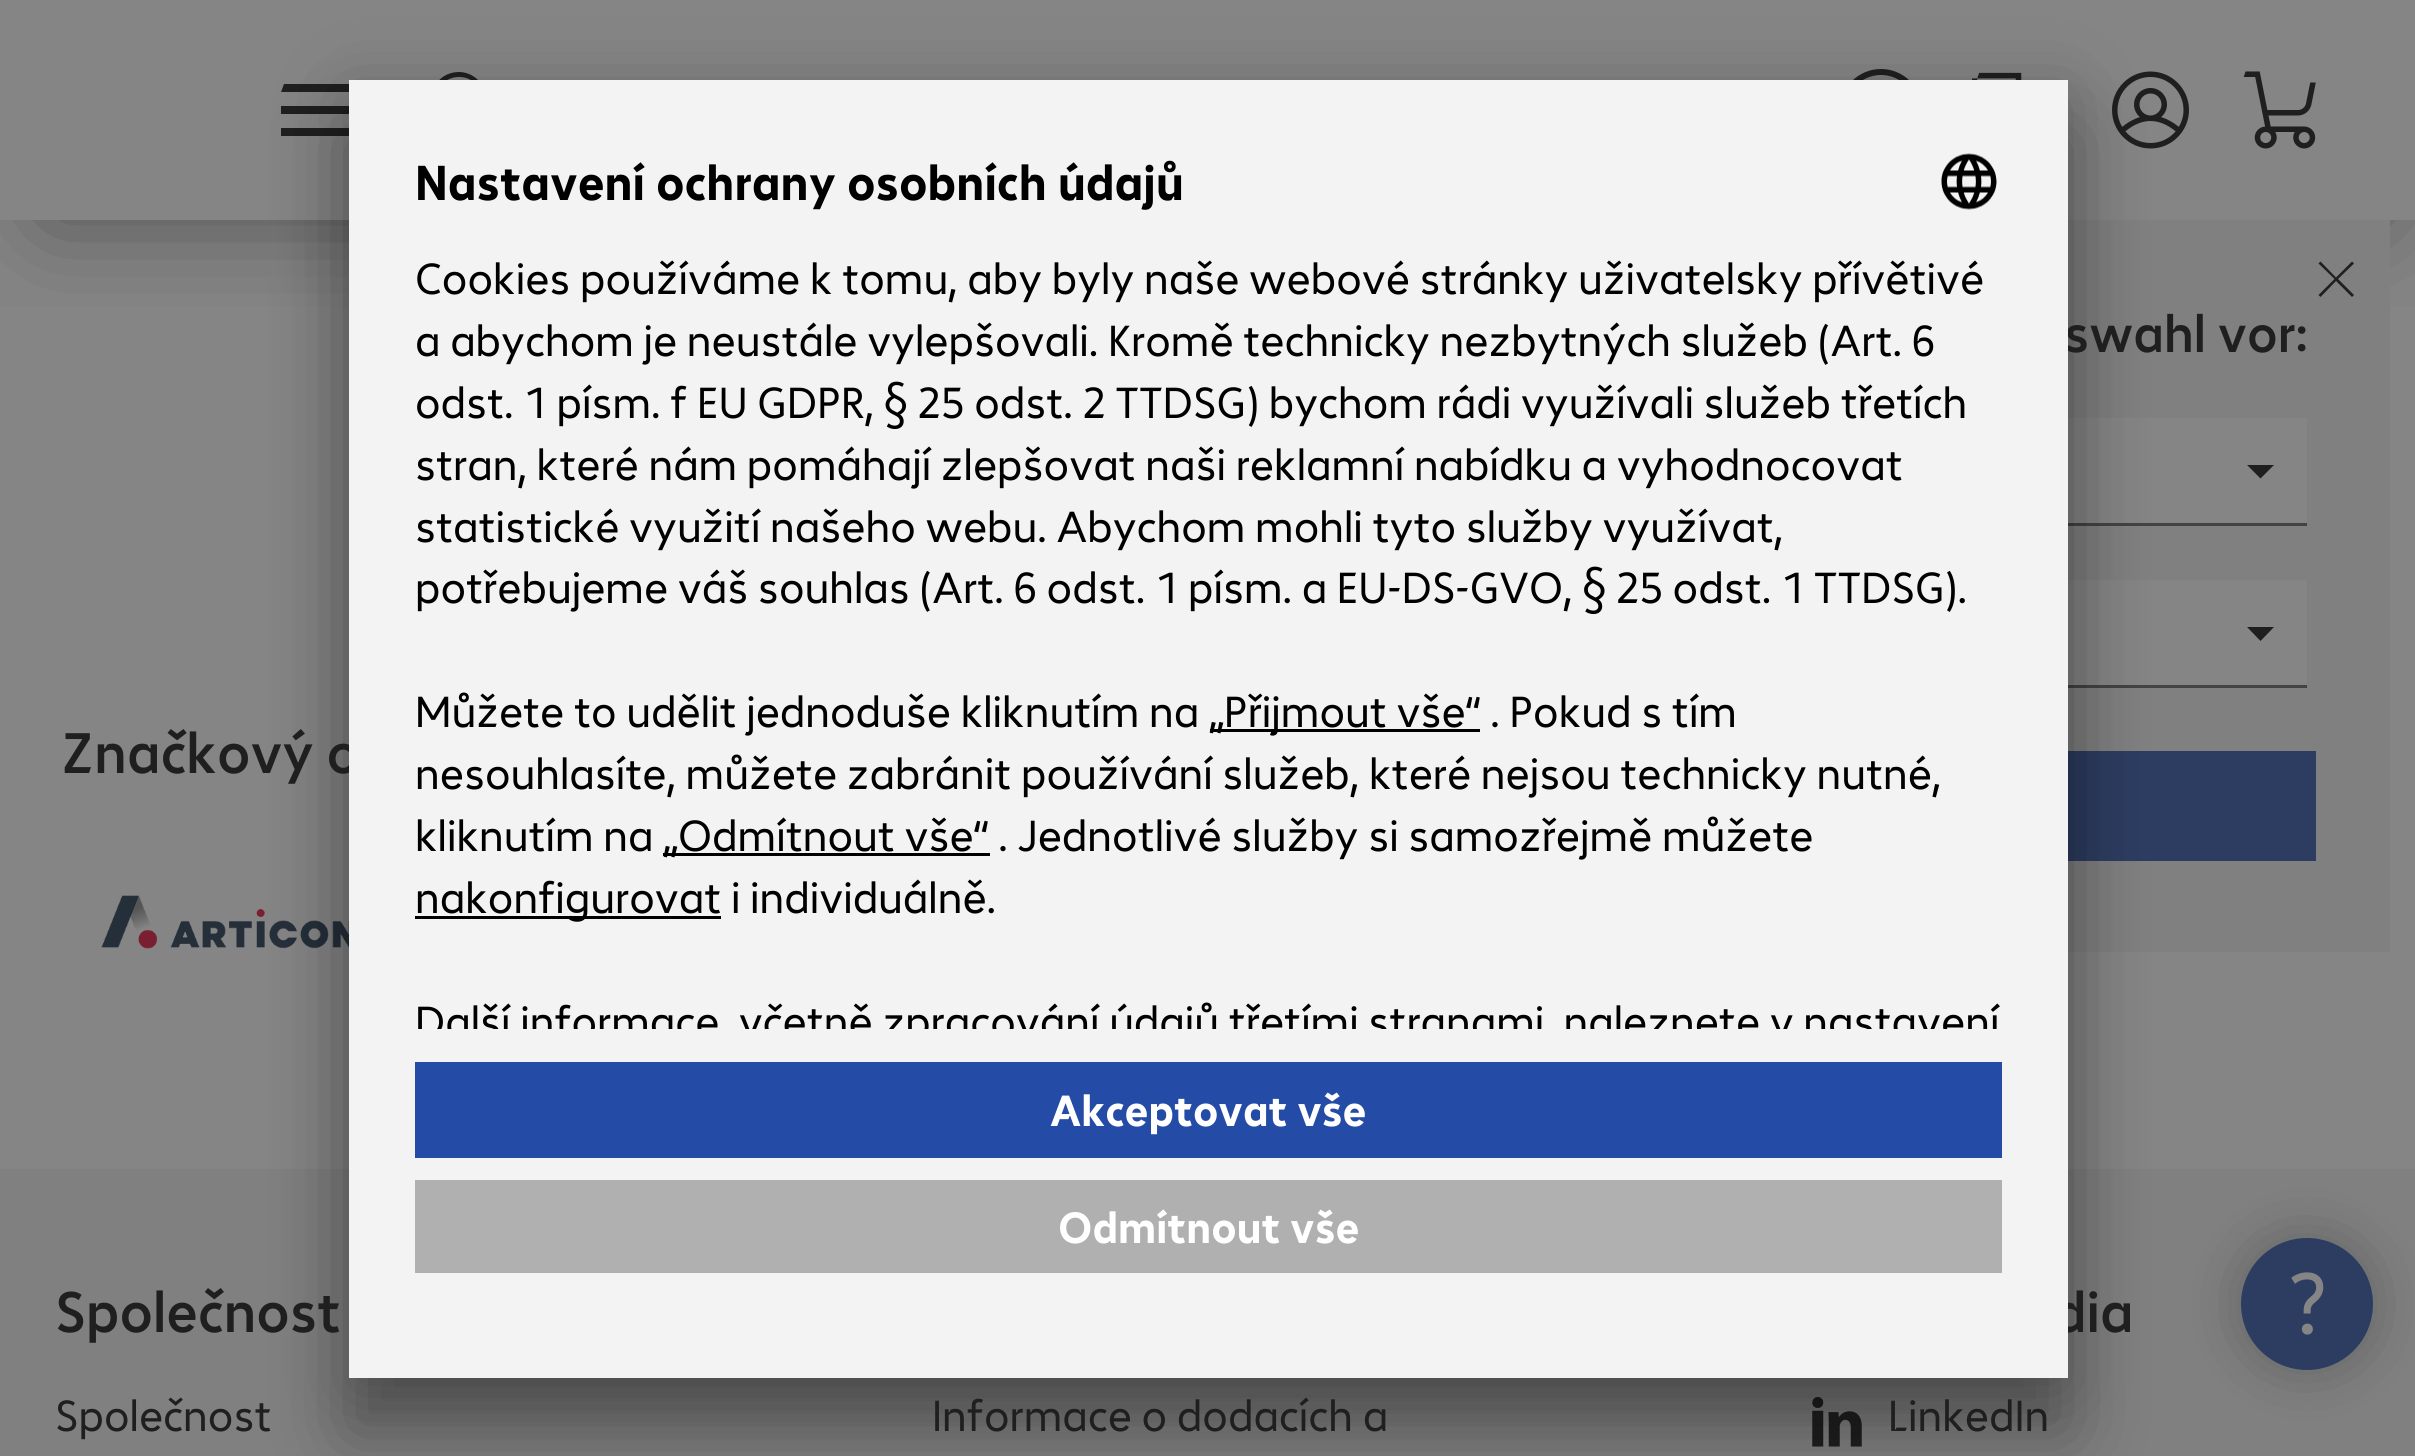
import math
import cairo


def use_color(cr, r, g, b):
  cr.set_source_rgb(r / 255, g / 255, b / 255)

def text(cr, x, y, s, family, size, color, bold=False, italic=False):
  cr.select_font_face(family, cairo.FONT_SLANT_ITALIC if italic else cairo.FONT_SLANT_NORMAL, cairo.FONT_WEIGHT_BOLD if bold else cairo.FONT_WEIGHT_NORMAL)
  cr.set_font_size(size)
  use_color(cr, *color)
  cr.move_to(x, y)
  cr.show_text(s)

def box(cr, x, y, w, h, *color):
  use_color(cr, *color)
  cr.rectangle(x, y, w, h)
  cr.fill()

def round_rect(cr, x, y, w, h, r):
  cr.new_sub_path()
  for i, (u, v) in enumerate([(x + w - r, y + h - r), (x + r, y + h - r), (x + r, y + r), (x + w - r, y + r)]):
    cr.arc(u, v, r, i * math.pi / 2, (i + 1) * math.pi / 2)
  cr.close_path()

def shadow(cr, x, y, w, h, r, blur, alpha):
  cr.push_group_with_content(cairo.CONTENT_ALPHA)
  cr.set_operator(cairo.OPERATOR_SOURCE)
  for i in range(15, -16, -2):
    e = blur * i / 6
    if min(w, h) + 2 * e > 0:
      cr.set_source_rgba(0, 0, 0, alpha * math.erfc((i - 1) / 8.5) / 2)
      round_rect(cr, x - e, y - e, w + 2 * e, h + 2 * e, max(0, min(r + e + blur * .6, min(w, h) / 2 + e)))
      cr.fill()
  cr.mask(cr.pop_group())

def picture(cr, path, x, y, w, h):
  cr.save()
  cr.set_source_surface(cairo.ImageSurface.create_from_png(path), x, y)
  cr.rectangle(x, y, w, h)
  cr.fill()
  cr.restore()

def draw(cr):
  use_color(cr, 133, 133, 133)
  cr.paint()
  cr.save()
  cr.rectangle(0, 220, 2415, 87)
  cr.clip()
  use_color(cr, 31, 31, 31)
  shadow(cr, 47, 80, 2335, 137, 0, 51, 0.52)
  cr.restore()
  box(cr, 281, 128, 68, 8, 31, 31, 31)
  box(cr, 281, 106, 68, 8, 31, 31, 31)
  cr.new_path()
  cr.move_to(284, 84)
  cr.line_to(362, 84)
  cr.line_to(362, 92)
  cr.line_to(281, 92)
  cr.close_path()
  cr.fill()
  cr.new_path()
  cr.move_to(459, 72)
  cr.curve_to(435, 72, 423, 99, 438, 117)
  cr.line_to(410, 144)
  cr.line_to(414, 148)
  cr.line_to(442, 121)
  cr.curve_to(468, 142, 503, 105, 478, 80)
  cr.curve_to(473, 75, 466, 72, 459, 72)
  cr.close_path()
  cr.move_to(459, 121)
  cr.curve_to(430, 121, 430, 77, 459, 77)
  cr.curve_to(488, 77, 488, 121, 459, 121)
  cr.close_path()
  cr.fill()
  picture(cr, "img_02.png", 1852, 69, 58, 11)
  cr.arc(1881, 110, 38, 0, 2 * math.pi)
  cr.set_line_width(6)
  cr.stroke()
  picture(cr, "img_03.png", 1972, 72, 50, 8)
  picture(cr, "img_04.png", 2112, 71, 77, 78)
  box(cr, 2068, 220, 322, 732, 128, 128, 128)
  box(cr, 2068, 418, 239, 105, 133, 133, 133)
  box(cr, 2068, 523, 239, 3, 67, 67, 67)
  box(cr, 2068, 580, 239, 105, 133, 133, 133)
  box(cr, 2068, 685, 239, 3, 67, 67, 67)
  box(cr, 2068, 751, 248, 110, 45, 61, 97)
  picture(cr, "img_06.png", 101, 895, 248, 54)
  box(cr, 0, 1169, 2415, 287, 128, 128, 128)
  picture(cr, "img_07.png", 1812, 1397, 50, 50)
  use_color(cr, 0, 0, 0)
  shadow(cr, 349, 135, 1719, 1298, 0, 38.5, 0.3)
  shadow(cr, 349, 94, 1719, 1298, 0, 36, 0.22)
  picture(cr, "img_05.png", 2243, 71, 73, 78)
  use_color(cr, 31, 31, 31)
  cr.new_path()
  cr.move_to(2354, 263.5)
  cr.line_to(2352, 261.5)
  cr.line_to(2336, 277.5)
  cr.line_to(2320.5, 261.5)
  cr.line_to(2318.5, 263.5)
  cr.line_to(2334.5, 279)
  cr.line_to(2318.5, 295)
  cr.line_to(2320.5, 297)
  cr.line_to(2336, 281)
  cr.line_to(2352, 297)
  cr.line_to(2354, 295)
  cr.line_to(2338, 279)
  cr.close_path()
  cr.fill()
  cr.new_path()
  cr.move_to(2247, 465)
  cr.line_to(2274, 465)
  cr.line_to(2260.5, 478.5)
  cr.close_path()
  cr.fill()
  cr.new_path()
  cr.move_to(2247, 627)
  cr.line_to(2274, 627)
  cr.line_to(2260.5, 641)
  cr.close_path()
  cr.fill()
  use_color(cr, 31, 37, 35)
  shadow(cr, 2241, 1238, 132, 132, 66, 27.5, 0.16)
  shadow(cr, 2241, 1238, 132, 132, 66, 27.5, 0.16)
  use_color(cr, 45, 61, 97)
  cr.arc(2307, 1304, 66, 0, 2 * math.pi)
  cr.fill()
  picture(cr, "img_08.png", 2291, 1272, 33, 63)
  text(cr, 2064, 352, "swahl vor:", "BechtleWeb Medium", 53, (31, 31, 31))
  text(cr, 61, 773, "Značkový o", "BechtleWeb Medium", 57.75, (31, 31, 31))
  text(cr, 55, 1332, "Společnost", "BechtleWeb Medium", 57.75, (31, 31, 31))
  text(cr, 55, 1431, "Společnost", "BechtleWeb", 44, (31, 31, 31))
  text(cr, 932, 1431, "Informace o dodacích a", "BechtleWeb", 44, (31, 31, 31))
  text(cr, 2053, 1332, "dia", "BechtleWeb Medium", 57.75, (31, 31, 31))
  box(cr, 349, 80, 1719, 1298, 243, 243, 243)
  picture(cr, "img_01.png", 1941, 153, 56, 57)
  text(cr, 415, 200, "Nastavení ochrany osobních údajů", "BechtleWeb", 49.5, (0, 0, 0), bold=True)
  cr.save()
  cr.rectangle(415, 237, 1587, 792)
  cr.clip()
  text(cr, 415, 1037, "Další informace, včetně zpracování údajů třetími stranami, naleznete v nastavení", "BechtleWeb", 44, (0, 0, 0))
  cr.restore()
  box(cr, 415, 916, 306, 3, 0, 0, 0)
  text(cr, 415, 913, "nakonfigurovat i individuálně.", "BechtleWeb", 44, (0, 0, 0))
  box(cr, 663, 853, 327, 3, 0, 0, 0)
  text(cr, 663, 851, "„Odmítnout vše“ . Jednotlivé služby si samozřejmě můžete", "BechtleWeb", 44, (0, 0, 0))
  text(cr, 415, 851, "kliknutím na", "BechtleWeb", 44, (0, 0, 0))
  text(cr, 415, 789, "nesouhlasíte, můžete zabránit používání služeb, které nejsou technicky nutné,", "BechtleWeb", 44, (0, 0, 0))
  box(cr, 1210, 729, 270, 3, 0, 0, 0)
  text(cr, 1209, 727, "„Přijmout vše“ . Pokud s tím", "BechtleWeb", 44, (0, 0, 0))
  text(cr, 415, 727, "Můžete to udělit jednoduše kliknutím na", "BechtleWeb", 44, (0, 0, 0))
  text(cr, 415, 603, "potřebujeme váš souhlas (Art. 6 odst. 1 písm. a EU-DS-GVO, § 25 odst. 1 TTDSG).", "BechtleWeb", 44, (0, 0, 0))
  text(cr, 415, 542, "statistické využití našeho webu. Abychom mohli tyto služby využívat,", "BechtleWeb", 44, (0, 0, 0))
  text(cr, 415, 480, "stran, které nám pomáhají zlepšovat naši reklamní nabídku a vyhodnocovat", "BechtleWeb", 44, (0, 0, 0))
  text(cr, 415, 418, "odst. 1 písm. f EU GDPR, § 25 odst. 2 TTDSG) bychom rádi využívali služeb třetích", "BechtleWeb", 44, (0, 0, 0))
  text(cr, 415, 356, "a abychom je neustále vylepšovali. Kromě technicky nezbytných služeb (Art. 6", "BechtleWeb", 44, (0, 0, 0))
  text(cr, 415, 294, "Cookies používáme k tomu, aby byly naše webové stránky uživatelsky přívětivé", "BechtleWeb", 44, (0, 0, 0))
  box(cr, 415, 1180, 1587, 93, 176, 176, 176)
  text(cr, 1058, 1243, "Odmítnout vše", "BechtleWeb", 44, (255, 255, 255), bold=True)
  box(cr, 415, 1062, 1587, 96, 36, 76, 167)
  text(cr, 1050, 1126, "Akceptovat vše", "BechtleWeb", 44, (255, 255, 255), bold=True)
  text(cr, 1888, 1431, "LinkedIn", "BechtleWeb", 44, (31, 31, 31))


surface = cairo.ImageSurface(cairo.FORMAT_RGB24, 2415, 1456)
cr = cairo.Context(surface)
options = cairo.FontOptions()
options.set_hint_metrics(cairo.HINT_METRICS_OFF)
options.set_hint_style(cairo.HINT_STYLE_NONE)
cr.set_font_options(options)
cr.set_miter_limit(4)
draw(cr)
surface.write_to_png("out.png")
